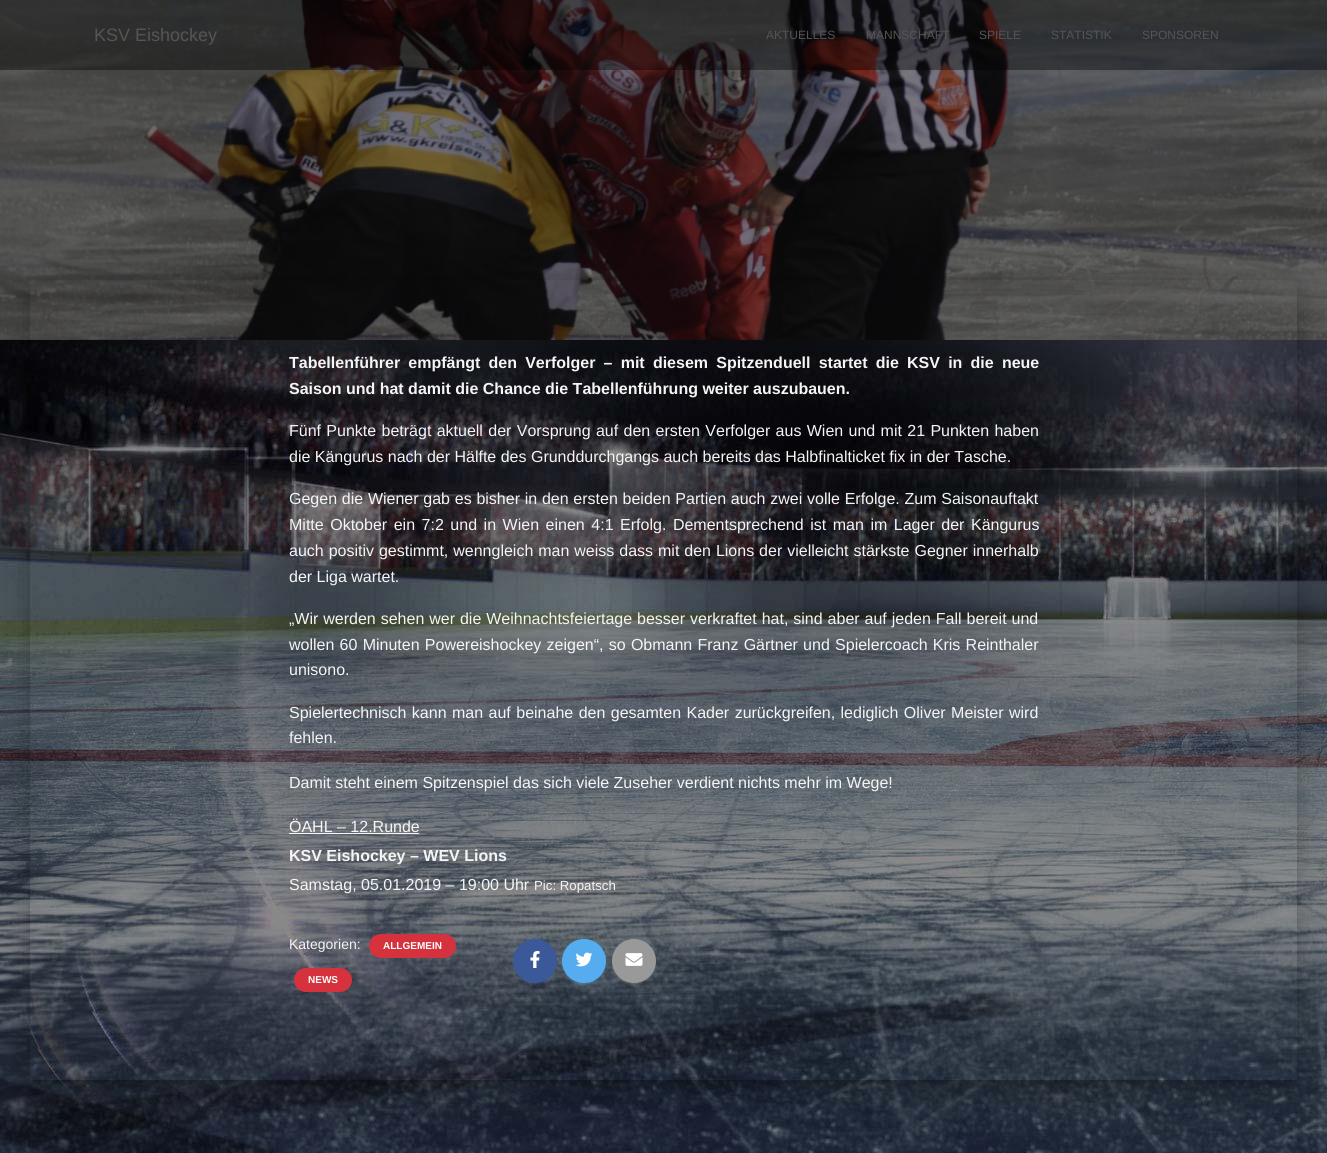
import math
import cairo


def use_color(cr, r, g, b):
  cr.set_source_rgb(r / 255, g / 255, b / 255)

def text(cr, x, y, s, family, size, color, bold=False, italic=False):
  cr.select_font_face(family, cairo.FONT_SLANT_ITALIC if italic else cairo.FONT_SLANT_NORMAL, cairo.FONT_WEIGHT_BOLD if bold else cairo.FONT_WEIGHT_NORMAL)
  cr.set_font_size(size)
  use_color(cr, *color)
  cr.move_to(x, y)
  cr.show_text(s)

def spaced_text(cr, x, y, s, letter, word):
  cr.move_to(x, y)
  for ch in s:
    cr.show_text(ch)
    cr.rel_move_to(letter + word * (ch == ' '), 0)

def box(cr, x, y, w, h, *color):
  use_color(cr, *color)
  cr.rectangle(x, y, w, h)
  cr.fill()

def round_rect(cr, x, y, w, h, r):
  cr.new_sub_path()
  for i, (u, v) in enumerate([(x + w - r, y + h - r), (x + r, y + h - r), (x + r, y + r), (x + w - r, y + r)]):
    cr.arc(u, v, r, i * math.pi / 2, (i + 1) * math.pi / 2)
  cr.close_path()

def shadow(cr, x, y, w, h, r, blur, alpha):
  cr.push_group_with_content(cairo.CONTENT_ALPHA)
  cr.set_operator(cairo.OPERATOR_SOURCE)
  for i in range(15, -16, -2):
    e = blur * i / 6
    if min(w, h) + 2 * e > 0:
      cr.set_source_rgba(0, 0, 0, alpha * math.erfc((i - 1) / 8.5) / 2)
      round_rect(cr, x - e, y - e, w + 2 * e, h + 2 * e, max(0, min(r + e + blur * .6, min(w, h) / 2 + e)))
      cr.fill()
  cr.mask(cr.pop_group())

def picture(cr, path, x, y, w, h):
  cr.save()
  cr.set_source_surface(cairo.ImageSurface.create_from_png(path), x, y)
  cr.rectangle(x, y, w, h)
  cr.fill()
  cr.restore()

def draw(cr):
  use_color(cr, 255, 255, 255)
  cr.paint()
  picture(cr, "img_01.png", 0, 339, 1327, 814)
  picture(cr, "img_02.png", 0, 0, 1327, 340)
  cr.set_source_rgba(0, 0, 0, 0.5)
  cr.rectangle(0, 0, 1327, 340)
  cr.fill()
  cr.set_source_rgba(0, 0, 0, 0.4)
  cr.rectangle(0, 0, 1327, 70)
  cr.fill()
  cr.save()
  cr.set_fill_rule(cairo.FILL_RULE_EVEN_ODD)
  cr.new_path()
  cr.move_to(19, 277)
  cr.line_to(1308, 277)
  cr.line_to(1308, 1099)
  cr.line_to(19, 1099)
  cr.close_path()
  cr.move_to(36, 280)
  cr.line_to(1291, 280)
  cr.curve_to(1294.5, 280, 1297, 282.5, 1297, 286)
  cr.line_to(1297, 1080)
  cr.line_to(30, 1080)
  cr.line_to(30, 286)
  cr.curve_to(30, 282.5, 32.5, 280, 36, 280)
  cr.close_path()
  cr.clip()
  use_color(cr, 0, 0, 0)
  shadow(cr, 35, 293, 1257, 790, 1, 5, 0.2)
  cr.restore()
  cr.save()
  cr.set_fill_rule(cairo.FILL_RULE_EVEN_ODD)
  cr.new_path()
  cr.move_to(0, 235)
  cr.line_to(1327, 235)
  cr.line_to(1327, 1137)
  cr.line_to(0, 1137)
  cr.close_path()
  cr.move_to(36, 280)
  cr.line_to(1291, 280)
  cr.curve_to(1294.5, 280, 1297, 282.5, 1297, 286)
  cr.line_to(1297, 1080)
  cr.line_to(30, 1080)
  cr.line_to(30, 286)
  cr.curve_to(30, 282.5, 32.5, 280, 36, 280)
  cr.close_path()
  cr.clip()
  use_color(cr, 0, 0, 0)
  shadow(cr, 25, 281, 1277, 810, 11, 15, 0.12)
  cr.restore()
  cr.save()
  cr.set_fill_rule(cairo.FILL_RULE_EVEN_ODD)
  cr.new_path()
  cr.move_to(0, 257)
  cr.line_to(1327, 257)
  cr.line_to(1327, 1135)
  cr.line_to(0, 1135)
  cr.close_path()
  cr.move_to(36, 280)
  cr.line_to(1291, 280)
  cr.curve_to(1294.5, 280, 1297, 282.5, 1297, 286)
  cr.line_to(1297, 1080)
  cr.line_to(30, 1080)
  cr.line_to(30, 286)
  cr.curve_to(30, 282.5, 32.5, 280, 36, 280)
  cr.close_path()
  cr.clip()
  use_color(cr, 0, 0, 0)
  shadow(cr, 28, 294, 1271, 804, 8, 12, 0.14)
  cr.restore()
  box(cr, 289, 833, 130, 1, 245, 245, 245)
  use_color(cr, 213, 50, 61)
  round_rect(cr, 369, 934, 87, 24, 12)
  cr.fill()
  round_rect(cr, 294, 968, 58, 24, 12)
  cr.fill()
  use_color(cr, 59, 89, 152)
  shadow(cr, 513, 940, 44, 44, 22, 2.5, 0.12)
  shadow(cr, 515, 944, 40, 40, 20, 0.5, 0.2)
  use_color(cr, 59, 89, 152)
  cr.arc(535, 961, 22, 0, 2 * math.pi)
  cr.fill()
  picture(cr, "img_03.png", 530, 951, 10, 17)
  use_color(cr, 85, 172, 238)
  shadow(cr, 562, 940, 44, 44, 22, 2.5, 0.12)
  shadow(cr, 564, 944, 40, 40, 20, 0.5, 0.2)
  shadow(cr, 562, 941, 44, 44, 22, 1, 0.14)
  use_color(cr, 85, 172, 238)
  cr.arc(584, 961, 22, 0, 2 * math.pi)
  cr.fill()
  picture(cr, "img_04.png", 575, 952, 18, 15)
  use_color(cr, 153, 153, 153)
  shadow(cr, 612, 940, 44, 44, 22, 2.5, 0.12)
  shadow(cr, 614, 944, 40, 40, 20, 0.5, 0.2)
  shadow(cr, 612, 941, 44, 44, 22, 1, 0.14)
  use_color(cr, 153, 153, 153)
  cr.arc(634, 961, 22, 0, 2 * math.pi)
  cr.fill()
  picture(cr, "img_05.png", 625, 953, 18, 13)
  text(cr, 94, 41, "KSV Eishockey", "Liberation Sans", 18, (85, 85, 85))
  text(cr, 766, 39, "AKTUELLES", "Liberation Sans", 12, (85, 85, 85))
  text(cr, 866, 39, "MANNSCHAFT", "Liberation Sans", 12, (85, 85, 85))
  text(cr, 979, 39, "SPIELE", "Liberation Sans", 12, (85, 85, 85))
  text(cr, 1051, 39, "STATISTIK", "Liberation Sans", 12, (85, 85, 85))
  text(cr, 1142, 39, "SPONSOREN", "Liberation Sans", 12, (85, 85, 85))
  cr.select_font_face("Liberation Sans", cairo.FONT_SLANT_NORMAL, cairo.FONT_WEIGHT_BOLD)
  cr.set_font_size(16)
  use_color(cr, 245, 245, 245)
  spaced_text(cr, 289, 368, "Tabellenführer empfängt den Verfolger – mit diesem Spitzenduell startet die KSV in die neue", 0, 3.75)
  text(cr, 289, 394, "Saison und hat damit die Chance die Tabellenführung weiter auszubauen.", "Liberation Sans", 16, (245, 245, 245), bold=True)
  cr.select_font_face("Liberation Sans")
  spaced_text(cr, 289, 436, "Fünf Punkte beträgt aktuell der Vorsprung auf den ersten Verfolger aus Wien und mit 21 Punkten haben", 0, 0.9)
  text(cr, 289, 462, "die Kängurus nach der Hälfte des Grunddurchgangs auch bereits das Halbfinalticket fix in der Tasche.", "Liberation Sans", 16, (245, 245, 245))
  spaced_text(cr, 289, 504, "Gegen die Wiener gab es bisher in den ersten beiden Partien auch zwei volle Erfolge. Zum Saisonauftakt", 0, 0.3)
  spaced_text(cr, 289, 530, "Mitte Oktober ein 7:2 und in Wien einen 4:1 Erfolg. Dementsprechend ist man im Lager der Kängurus", 0, 2.1)
  spaced_text(cr, 289, 556, "auch positiv gestimmt, wenngleich man weiss dass mit den Lions der vielleicht stärkste Gegner innerhalb", 0, 0.5)
  text(cr, 289, 582, "der Liga wartet.", "Liberation Sans", 16, (245, 245, 245))
  spaced_text(cr, 289, 624, "„Wir werden sehen wer die Weihnachtsfeiertage besser verkraftet hat, sind aber auf jeden Fall bereit und", 0, 0.5)
  spaced_text(cr, 289, 650, "wollen 60 Minuten Powereishockey zeigen“, so Obmann Franz Gärtner und Spielercoach Kris Reinthaler", 0, 0.8)
  text(cr, 289, 675, "unisono.", "Liberation Sans", 16, (245, 245, 245))
  spaced_text(cr, 289, 718, "Spielertechnisch kann man auf beinahe den gesamten Kader zurückgreifen, lediglich Oliver Meister wird", 0, 1)
  text(cr, 289, 743, "fehlen.", "Liberation Sans", 16, (245, 245, 245))
  text(cr, 289, 788, "Damit steht einem Spitzenspiel das sich viele Zuseher verdient nichts mehr im Wege!", "Liberation Sans", 16, (245, 245, 245))
  text(cr, 289, 832, "ÖAHL – 12.Runde", "Liberation Sans", 16, (245, 245, 245))
  text(cr, 289, 861, "KSV Eishockey – WEV Lions", "Liberation Sans", 16, (245, 245, 245), bold=True)
  text(cr, 289, 890, "Samstag, 05.01.2019 – 19:00 Uhr", "Liberation Sans", 16, (245, 245, 245))
  text(cr, 534, 890, "Pic: Ropatsch", "Liberation Sans", 13.25, (245, 245, 245))
  text(cr, 289, 949, "Kategorien:", "Liberation Sans", 14, (245, 245, 245))
  text(cr, 383, 949, "ALLGEMEIN", "Liberation Sans", 10, (255, 255, 255), bold=True)
  text(cr, 308, 983, "NEWS", "Liberation Sans", 10, (255, 255, 255), bold=True)


surface = cairo.ImageSurface(cairo.FORMAT_RGB24, 1327, 1153)
cr = cairo.Context(surface)
options = cairo.FontOptions()
options.set_hint_metrics(cairo.HINT_METRICS_OFF)
options.set_hint_style(cairo.HINT_STYLE_NONE)
cr.set_font_options(options)
cr.set_miter_limit(4)
draw(cr)
surface.write_to_png("out.png")
